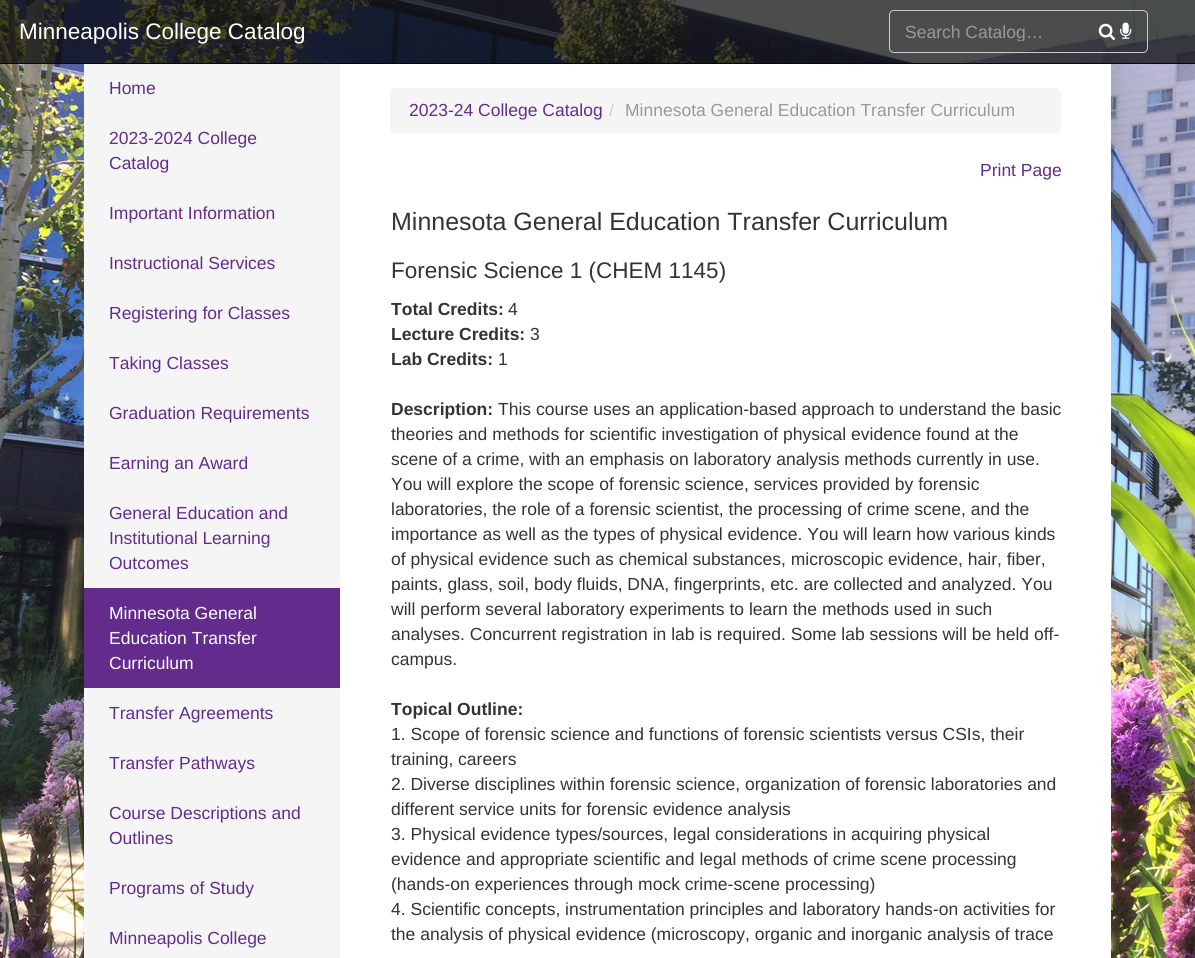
import math
import cairo


def use_color(cr, r, g, b):
  cr.set_source_rgb(r / 255, g / 255, b / 255)

def text(cr, x, y, s, family, size, color, bold=False, italic=False):
  cr.select_font_face(family, cairo.FONT_SLANT_ITALIC if italic else cairo.FONT_SLANT_NORMAL, cairo.FONT_WEIGHT_BOLD if bold else cairo.FONT_WEIGHT_NORMAL)
  cr.set_font_size(size)
  use_color(cr, *color)
  cr.move_to(x, y)
  cr.show_text(s)

def box(cr, x, y, w, h, *color):
  use_color(cr, *color)
  cr.rectangle(x, y, w, h)
  cr.fill()

def round_rect(cr, x, y, w, h, r):
  cr.new_sub_path()
  for i, (u, v) in enumerate([(x + w - r, y + h - r), (x + r, y + h - r), (x + r, y + r), (x + w - r, y + r)]):
    cr.arc(u, v, r, i * math.pi / 2, (i + 1) * math.pi / 2)
  cr.close_path()

def picture(cr, path, x, y, w, h):
  cr.save()
  cr.set_source_surface(cairo.ImageSurface.create_from_png(path), x, y)
  cr.rectangle(x, y, w, h)
  cr.fill()
  cr.restore()

def draw(cr):
  use_color(cr, 255, 255, 255)
  cr.paint()
  picture(cr, "img_01.png", 0, 0, 1195, 958)
  cr.set_source_rgba(0, 0, 0, 0.7)
  cr.rectangle(0, 0, 1195, 63)
  cr.fill()
  box(cr, 0, 63, 1195, 1, 8, 8, 8)
  cr.set_source_rgba(0, 0, 0, 0.07)
  cr.new_path()
  cr.move_to(894, 12)
  cr.line_to(1142, 12)
  cr.curve_to(1145, 12, 1146, 14, 1146, 16)
  cr.line_to(1146, 15)
  cr.curve_to(1146, 13, 1144, 11, 1142, 11)
  cr.line_to(894, 11)
  cr.curve_to(892, 11, 890, 13, 890, 15)
  cr.line_to(890, 16)
  cr.curve_to(890, 14, 892, 12, 894, 12)
  cr.close_path()
  cr.fill()
  round_rect(cr, 889.5, 10.5, 258, 42, 4.5)
  use_color(cr, 204, 204, 204)
  cr.set_line_width(1)
  cr.stroke()
  picture(cr, "img_02.png", 1098, 23, 17, 17)
  picture(cr, "img_03.png", 1120, 22, 12, 17)
  box(cr, 84, 64, 256, 894, 245, 245, 245)
  box(cr, 84, 588, 256, 100, 99, 44, 140)
  box(cr, 340, 64, 771, 894, 255, 255, 255)
  use_color(cr, 245, 245, 245)
  round_rect(cr, 390, 88, 671, 45, 5)
  cr.fill()
  text(cr, 19, 39, "Minneapolis College Catalog", "Liberation Sans", 22.5, (255, 255, 255))
  cr.save()
  cr.rectangle(905, 21, 226, 20)
  cr.clip()
  text(cr, 905, 38, "Search Catalog…", "Liberation Sans", 17.5, (153, 153, 153))
  cr.restore()
  text(cr, 109, 94, "Home", "Liberation Sans", 17.5, (99, 44, 140))
  text(cr, 109, 144, "2023-2024 College", "Liberation Sans", 17.5, (99, 44, 140))
  text(cr, 109, 169, "Catalog", "Liberation Sans", 17.5, (99, 44, 140))
  text(cr, 109, 219, "Important Information", "Liberation Sans", 17.5, (99, 44, 140))
  text(cr, 109, 269, "Instructional Services", "Liberation Sans", 17.5, (99, 44, 140))
  text(cr, 109, 319, "Registering for Classes", "Liberation Sans", 17.5, (99, 44, 140))
  text(cr, 109, 369, "Taking Classes", "Liberation Sans", 17.5, (99, 44, 140))
  text(cr, 109, 419, "Graduation Requirements", "Liberation Sans", 17.5, (99, 44, 140))
  text(cr, 109, 469, "Earning an Award", "Liberation Sans", 17.5, (99, 44, 140))
  text(cr, 109, 519, "General Education and", "Liberation Sans", 17.5, (99, 44, 140))
  text(cr, 109, 544, "Institutional Learning", "Liberation Sans", 17.5, (99, 44, 140))
  text(cr, 109, 569, "Outcomes", "Liberation Sans", 17.5, (99, 44, 140))
  text(cr, 109, 619, "Minnesota General", "Liberation Sans", 17.5, (255, 255, 255))
  text(cr, 109, 644, "Education Transfer", "Liberation Sans", 17.5, (255, 255, 255))
  text(cr, 109, 669, "Curriculum", "Liberation Sans", 17.5, (255, 255, 255))
  text(cr, 109, 719, "Transfer Agreements", "Liberation Sans", 17.5, (99, 44, 140))
  text(cr, 109, 769, "Transfer Pathways", "Liberation Sans", 17.5, (99, 44, 140))
  text(cr, 109, 819, "Course Descriptions and", "Liberation Sans", 17.5, (99, 44, 140))
  text(cr, 109, 844, "Outlines", "Liberation Sans", 17.5, (99, 44, 140))
  text(cr, 109, 894, "Programs of Study", "Liberation Sans", 17.5, (99, 44, 140))
  text(cr, 109, 944, "Minneapolis College", "Liberation Sans", 17.5, (99, 44, 140))
  text(cr, 409, 116, "2023-24 College Catalog", "Liberation Sans", 17.5, (99, 44, 140))
  text(cr, 609, 116, "/", "Liberation Sans", 17.5, (204, 204, 204))
  text(cr, 625, 116, "Minnesota General Education Transfer Curriculum", "Liberation Sans", 17.5, (153, 153, 153))
  text(cr, 980, 176, "Print Page", "Liberation Sans", 17.5, (99, 44, 140))
  text(cr, 391, 230, "Minnesota General Education Transfer Curriculum", "Liberation Sans", 25, (51, 51, 51))
  text(cr, 391, 278, "Forensic Science 1 (CHEM 1145)", "Liberation Sans", 22.5, (51, 51, 51))
  text(cr, 391, 315, "Total Credits:", "Liberation Sans", 17.5, (51, 51, 51), bold=True)
  text(cr, 508, 315, "4", "Liberation Sans", 17.5, (51, 51, 51))
  text(cr, 391, 340, "Lecture Credits:", "Liberation Sans", 17.5, (51, 51, 51), bold=True)
  text(cr, 530, 340, "3", "Liberation Sans", 17.5, (51, 51, 51))
  text(cr, 391, 365, "Lab Credits:", "Liberation Sans", 17.5, (51, 51, 51), bold=True)
  text(cr, 498, 365, "1", "Liberation Sans", 17.5, (51, 51, 51))
  text(cr, 391, 415, "Description:", "Liberation Sans", 17.5, (51, 51, 51), bold=True)
  text(cr, 498, 415, "This course uses an application-based approach to understand the basic", "Liberation Sans", 17.5, (51, 51, 51))
  text(cr, 391, 440, "theories and methods for scientific investigation of physical evidence found at the", "Liberation Sans", 17.5, (51, 51, 51))
  text(cr, 391, 465, "scene of a crime, with an emphasis on laboratory analysis methods currently in use.", "Liberation Sans", 17.5, (51, 51, 51))
  text(cr, 391, 490, "You will explore the scope of forensic science, services provided by forensic", "Liberation Sans", 17.5, (51, 51, 51))
  text(cr, 391, 515, "laboratories, the role of a forensic scientist, the processing of crime scene, and the", "Liberation Sans", 17.5, (51, 51, 51))
  text(cr, 391, 540, "importance as well as the types of physical evidence. You will learn how various kinds", "Liberation Sans", 17.5, (51, 51, 51))
  text(cr, 391, 565, "of physical evidence such as chemical substances, microscopic evidence, hair, fiber,", "Liberation Sans", 17.5, (51, 51, 51))
  text(cr, 391, 590, "paints, glass, soil, body fluids, DNA, fingerprints, etc. are collected and analyzed. You", "Liberation Sans", 17.5, (51, 51, 51))
  text(cr, 391, 615, "will perform several laboratory experiments to learn the methods used in such", "Liberation Sans", 17.5, (51, 51, 51))
  text(cr, 391, 640, "analyses. Concurrent registration in lab is required. Some lab sessions will be held off-", "Liberation Sans", 17.5, (51, 51, 51))
  text(cr, 391, 665, "campus.", "Liberation Sans", 17.5, (51, 51, 51))
  text(cr, 391, 715, "Topical Outline:", "Liberation Sans", 17.5, (51, 51, 51), bold=True)
  text(cr, 391, 740, "1. Scope of forensic science and functions of forensic scientists versus CSIs, their", "Liberation Sans", 17.5, (51, 51, 51))
  text(cr, 391, 765, "training, careers", "Liberation Sans", 17.5, (51, 51, 51))
  text(cr, 391, 790, "2. Diverse disciplines within forensic science, organization of forensic laboratories and", "Liberation Sans", 17.5, (51, 51, 51))
  text(cr, 391, 815, "different service units for forensic evidence analysis", "Liberation Sans", 17.5, (51, 51, 51))
  text(cr, 391, 840, "3. Physical evidence types/sources, legal considerations in acquiring physical", "Liberation Sans", 17.5, (51, 51, 51))
  text(cr, 391, 865, "evidence and appropriate scientific and legal methods of crime scene processing", "Liberation Sans", 17.5, (51, 51, 51))
  text(cr, 391, 890, "(hands-on experiences through mock crime-scene processing)", "Liberation Sans", 17.5, (51, 51, 51))
  text(cr, 391, 915, "4. Scientific concepts, instrumentation principles and laboratory hands-on activities for", "Liberation Sans", 17.5, (51, 51, 51))
  text(cr, 391, 940, "the analysis of physical evidence (microscopy, organic and inorganic analysis of trace", "Liberation Sans", 17.5, (51, 51, 51))


surface = cairo.ImageSurface(cairo.FORMAT_RGB24, 1195, 958)
cr = cairo.Context(surface)
options = cairo.FontOptions()
options.set_hint_metrics(cairo.HINT_METRICS_OFF)
options.set_hint_style(cairo.HINT_STYLE_NONE)
cr.set_font_options(options)
cr.set_miter_limit(4)
draw(cr)
surface.write_to_png("out.png")
